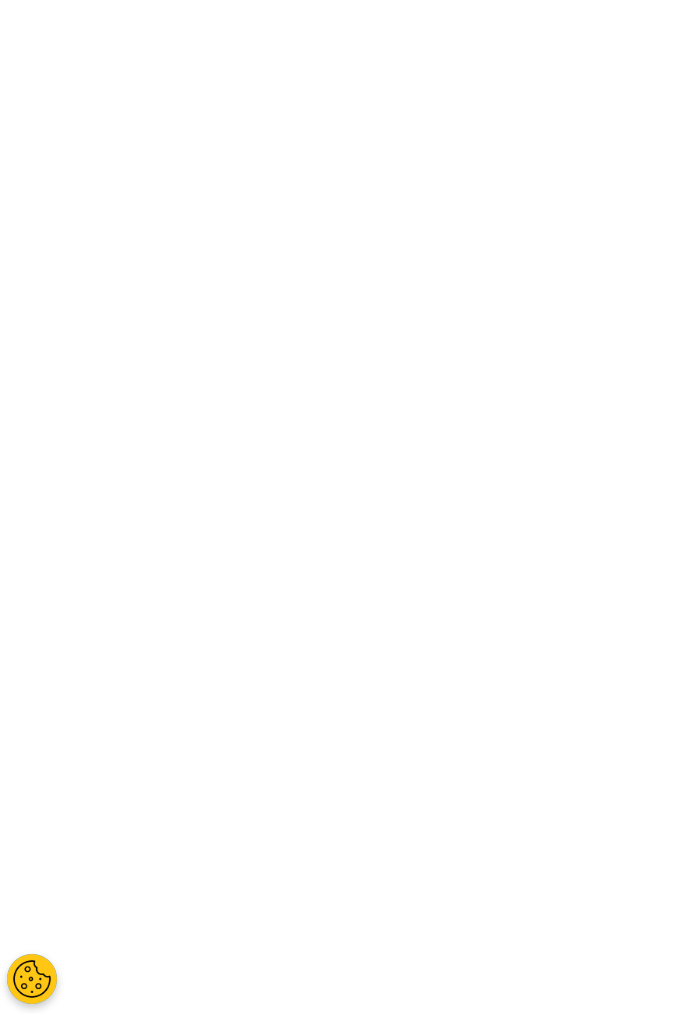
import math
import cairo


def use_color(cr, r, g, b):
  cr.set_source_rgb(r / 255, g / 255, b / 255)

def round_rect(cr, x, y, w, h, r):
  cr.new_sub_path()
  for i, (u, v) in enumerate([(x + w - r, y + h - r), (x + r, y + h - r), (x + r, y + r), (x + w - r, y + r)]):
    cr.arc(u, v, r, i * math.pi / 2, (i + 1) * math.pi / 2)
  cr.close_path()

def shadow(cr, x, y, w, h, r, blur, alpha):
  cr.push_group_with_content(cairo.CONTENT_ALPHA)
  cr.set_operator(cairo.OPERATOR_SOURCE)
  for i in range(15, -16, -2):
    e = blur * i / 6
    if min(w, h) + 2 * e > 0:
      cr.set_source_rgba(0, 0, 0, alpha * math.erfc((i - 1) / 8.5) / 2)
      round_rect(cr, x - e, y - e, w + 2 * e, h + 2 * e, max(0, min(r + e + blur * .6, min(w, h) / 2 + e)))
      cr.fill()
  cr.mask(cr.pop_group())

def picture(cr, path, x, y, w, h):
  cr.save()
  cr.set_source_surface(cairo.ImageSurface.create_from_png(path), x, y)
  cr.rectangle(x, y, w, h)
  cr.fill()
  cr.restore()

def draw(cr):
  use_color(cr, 255, 255, 255)
  cr.paint()
  use_color(cr, 0, 0, 0)
  shadow(cr, 7, 958, 50, 50, 25, 4, 0.2)
  use_color(cr, 106, 170, 228)
  cr.arc(32, 979, 25, 0, 2 * math.pi)
  cr.fill()
  picture(cr, "img_01.png", 7, 954, 50, 50)


surface = cairo.ImageSurface(cairo.FORMAT_RGB24, 692, 1014)
cr = cairo.Context(surface)
options = cairo.FontOptions()
options.set_hint_metrics(cairo.HINT_METRICS_OFF)
options.set_hint_style(cairo.HINT_STYLE_NONE)
cr.set_font_options(options)
cr.set_miter_limit(4)
draw(cr)
surface.write_to_png("out.png")
